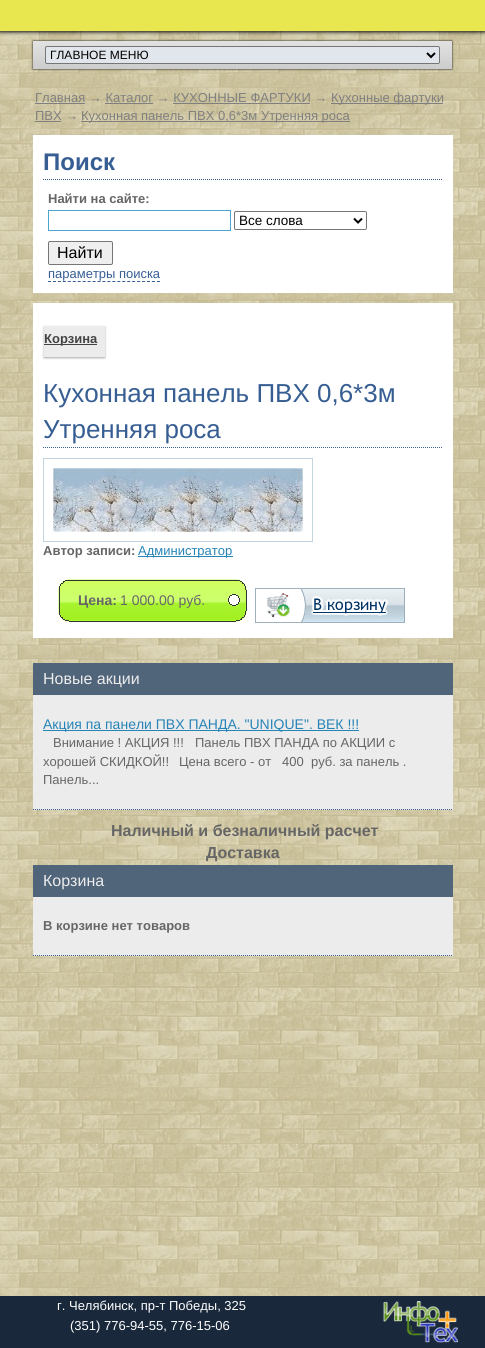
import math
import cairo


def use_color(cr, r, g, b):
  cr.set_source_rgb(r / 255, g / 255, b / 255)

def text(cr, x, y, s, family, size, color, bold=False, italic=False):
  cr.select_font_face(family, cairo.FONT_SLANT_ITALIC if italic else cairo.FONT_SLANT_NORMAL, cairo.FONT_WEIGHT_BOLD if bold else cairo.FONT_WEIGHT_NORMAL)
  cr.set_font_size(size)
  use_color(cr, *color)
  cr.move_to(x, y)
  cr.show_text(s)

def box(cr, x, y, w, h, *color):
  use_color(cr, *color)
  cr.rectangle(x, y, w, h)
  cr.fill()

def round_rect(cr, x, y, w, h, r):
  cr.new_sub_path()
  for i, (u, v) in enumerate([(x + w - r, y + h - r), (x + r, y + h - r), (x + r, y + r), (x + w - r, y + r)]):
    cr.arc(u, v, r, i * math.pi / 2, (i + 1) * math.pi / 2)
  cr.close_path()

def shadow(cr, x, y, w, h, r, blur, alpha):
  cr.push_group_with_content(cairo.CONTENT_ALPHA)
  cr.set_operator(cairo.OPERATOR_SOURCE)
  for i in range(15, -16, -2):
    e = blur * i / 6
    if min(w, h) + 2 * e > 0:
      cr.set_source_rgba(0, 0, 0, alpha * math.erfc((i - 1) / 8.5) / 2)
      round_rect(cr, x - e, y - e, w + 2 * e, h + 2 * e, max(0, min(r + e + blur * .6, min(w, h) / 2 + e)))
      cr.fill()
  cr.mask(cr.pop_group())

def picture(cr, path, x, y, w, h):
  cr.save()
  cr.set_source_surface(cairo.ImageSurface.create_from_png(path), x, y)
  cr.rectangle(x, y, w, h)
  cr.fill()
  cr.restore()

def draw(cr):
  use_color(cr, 255, 255, 255)
  cr.paint()
  picture(cr, "img_01.png", 0, 31, 485, 1265)
  use_color(cr, 0, 0, 0)
  shadow(cr, 0, 1, 485, 31, 0, 2, 1)
  box(cr, 0, 0, 485, 31, 232, 231, 80)
  use_color(cr, 0, 0, 0)
  shadow(cr, 33, 41, 419, 28, 0, 1, 1)
  picture(cr, "img_02.png", 33, 41, 419, 28)
  use_color(cr, 225, 229, 236)
  round_rect(cr, 45.5, 46.5, 394, 17, 1.5)
  cr.fill_preserve()
  use_color(cr, 118, 118, 118)
  cr.set_line_width(1)
  cr.stroke()
  cr.new_path()
  cr.move_to(427, 53)
  cr.line_to(431, 57)
  cr.line_to(435, 53)
  use_color(cr, 0, 0, 0)
  cr.set_line_width(2)
  cr.stroke()
  box(cr, 35, 103, 50, 1, 128, 128, 128)
  box(cr, 331, 103, 112, 1, 128, 128, 128)
  box(cr, 105, 103, 48, 1, 128, 128, 128)
  box(cr, 173, 103, 137, 1, 128, 128, 128)
  box(cr, 35, 121, 26, 1, 128, 128, 128)
  box(cr, 81, 121, 269, 1, 128, 128, 128)
  box(cr, 33, 135, 420, 158, 255, 255, 255)
  cr.new_path()
  cr.move_to(43, 179.5)
  cr.line_to(443, 179.5)
  use_color(cr, 55, 94, 147)
  cr.set_line_width(1)
  cr.set_dash([1, 1])
  cr.stroke()
  cr.rectangle(48.5, 210.5, 182, 20)
  use_color(cr, 77, 164, 207)
  cr.set_dash([])
  cr.stroke()
  round_rect(cr, 234.5, 211.5, 132, 18, 1.5)
  use_color(cr, 118, 118, 118)
  cr.stroke()
  cr.new_path()
  cr.move_to(354, 218.5)
  cr.line_to(358, 222.5)
  cr.line_to(362, 218.5)
  use_color(cr, 0, 0, 0)
  cr.set_line_width(2)
  cr.stroke()
  use_color(cr, 239, 239, 239)
  round_rect(cr, 48.5, 241.5, 64, 23, 1.5)
  cr.fill_preserve()
  use_color(cr, 118, 118, 118)
  cr.set_line_width(1)
  cr.stroke()
  cr.new_path()
  cr.move_to(48, 281.5)
  cr.line_to(160, 281.5)
  use_color(cr, 55, 94, 147)
  cr.set_dash([3, 1.95])
  cr.stroke()
  box(cr, 33, 303, 420, 335, 255, 255, 255)
  use_color(cr, 170, 170, 170)
  shadow(cr, 44, 327, 61, 31, 0, 1, 1)
  box(cr, 44, 326, 61, 31, 236, 236, 236)
  box(cr, 44, 344, 53, 1, 68, 68, 68)
  cr.new_path()
  cr.move_to(43, 447.5)
  cr.line_to(443, 447.5)
  use_color(cr, 55, 94, 147)
  cr.set_dash([1, 1])
  cr.stroke()
  cr.rectangle(43.5, 458.5, 269, 83)
  use_color(cr, 195, 214, 223)
  cr.set_dash([])
  cr.stroke()
  picture(cr, "img_03.png", 53, 468, 250, 64)
  box(cr, 138, 556, 95, 1, 38, 132, 183)
  picture(cr, "img_04.png", 58, 579, 189, 43)
  picture(cr, "img_05.png", 255, 588, 150, 35)
  box(cr, 33, 695, 420, 115, 236, 236, 236)
  cr.new_path()
  cr.move_to(33, 809.5)
  cr.line_to(453, 809.5)
  use_color(cr, 55, 94, 147)
  cr.set_dash([1, 1])
  cr.stroke()
  box(cr, 33, 663, 420, 32, 80, 100, 122)
  box(cr, 43, 730, 316, 1, 38, 132, 183)
  box(cr, 33, 897, 420, 59, 236, 236, 236)
  cr.new_path()
  cr.move_to(33, 955.5)
  cr.line_to(453, 955.5)
  use_color(cr, 55, 94, 147)
  cr.stroke()
  box(cr, 33, 865, 420, 32, 80, 100, 122)
  box(cr, 0, 1296, 485, 52, 25, 40, 59)
  picture(cr, "img_06.png", 382, 1301, 76, 42)
  text(cr, 50, 59, "ГЛАВНОЕ МЕНЮ", "Liberation Sans", 12, (0, 0, 0))
  text(cr, 35, 102, "Главная → Каталог → КУХОННЫЕ ФАРТУКИ →", "Liberation Sans", 13, (128, 128, 128))
  text(cr, 331, 102, "Кухонные фартуки", "Liberation Sans", 13, (128, 128, 128))
  text(cr, 35, 120, "ПВХ →", "Liberation Sans", 13, (128, 128, 128))
  text(cr, 81, 120, "Кухонная панель ПВХ 0,6*3м Утренняя роса", "Liberation Sans", 13, (128, 128, 128))
  text(cr, 43, 170, "Поиск", "Liberation Sans", 24, (55, 94, 147), bold=True)
  text(cr, 48, 203, "Найти на сайте:", "Liberation Sans", 13, (102, 102, 102), bold=True)
  text(cr, 239, 225, "Все слова", "Liberation Sans", 13.5, (0, 0, 0))
  text(cr, 57, 258, "Найти", "Liberation Sans", 16, (0, 0, 0))
  text(cr, 48, 278, "параметры поиска", "Liberation Sans", 13, (55, 94, 147))
  text(cr, 44, 343, "Корзина", "Liberation Sans", 13, (68, 68, 68), bold=True)
  text(cr, 43, 402, "Кухонная панель ПВХ 0,6*3м", "Liberation Sans", 26, (55, 94, 147))
  text(cr, 43, 438, "Утренняя роса", "Liberation Sans", 26, (55, 94, 147))
  text(cr, 43, 555, "Автор записи:", "Liberation Sans", 13, (102, 102, 102), bold=True)
  text(cr, 138, 555, "Администратор", "Liberation Sans", 13, (38, 132, 183))
  text(cr, 78, 605, "Цена:", "Liberation Sans", 14, (102, 102, 102), bold=True)
  text(cr, 120, 605, "1 000.00 руб.", "Liberation Sans", 14, (102, 102, 102))
  text(cr, 43, 684, "Новые акции", "Liberation Sans", 16, (236, 236, 236))
  text(cr, 43, 729, "Акция па панели ПВХ ПАНДА. \"UNIQUE\". ВЕК !!!", "Liberation Sans", 14, (38, 132, 183))
  text(cr, 53, 747, "Внимание ! АКЦИЯ !!!", "Liberation Sans", 13, (102, 102, 102))
  text(cr, 195, 747, "Панель ПВХ ПАНДА по АКЦИИ с", "Liberation Sans", 13, (102, 102, 102))
  text(cr, 43, 766, "хорошей СКИДКОЙ!!", "Liberation Sans", 13, (102, 102, 102))
  text(cr, 179, 766, "Цена всего - от", "Liberation Sans", 13, (102, 102, 102))
  text(cr, 282, 766, "400", "Liberation Sans", 13, (102, 102, 102))
  text(cr, 311, 766, "руб. за панель .", "Liberation Sans", 13, (102, 102, 102))
  text(cr, 43, 784, "Панель...", "Liberation Sans", 13, (102, 102, 102))
  text(cr, 111, 836, "Наличный и безналичный расчет", "Liberation Sans", 16, (102, 102, 102), bold=True)
  text(cr, 206, 858, "Доставка", "Liberation Sans", 16, (102, 102, 102), bold=True)
  text(cr, 43, 886, "Корзина", "Liberation Sans", 16, (236, 236, 236))
  text(cr, 43, 930, "В корзине нет товаров", "Liberation Sans", 13, (102, 102, 102), bold=True)
  text(cr, 57, 1310, "г. Челябинск, пр-т Победы, 325", "Liberation Sans", 13, (255, 255, 255))
  text(cr, 70, 1330, "(351) 776-94-55, 776-15-06", "Liberation Sans", 13, (255, 255, 255))


surface = cairo.ImageSurface(cairo.FORMAT_RGB24, 485, 1348)
cr = cairo.Context(surface)
options = cairo.FontOptions()
options.set_hint_metrics(cairo.HINT_METRICS_OFF)
options.set_hint_style(cairo.HINT_STYLE_NONE)
cr.set_font_options(options)
cr.set_miter_limit(4)
draw(cr)
surface.write_to_png("out.png")
